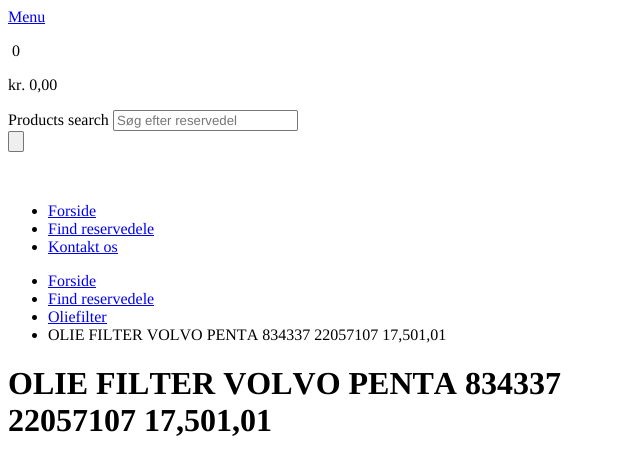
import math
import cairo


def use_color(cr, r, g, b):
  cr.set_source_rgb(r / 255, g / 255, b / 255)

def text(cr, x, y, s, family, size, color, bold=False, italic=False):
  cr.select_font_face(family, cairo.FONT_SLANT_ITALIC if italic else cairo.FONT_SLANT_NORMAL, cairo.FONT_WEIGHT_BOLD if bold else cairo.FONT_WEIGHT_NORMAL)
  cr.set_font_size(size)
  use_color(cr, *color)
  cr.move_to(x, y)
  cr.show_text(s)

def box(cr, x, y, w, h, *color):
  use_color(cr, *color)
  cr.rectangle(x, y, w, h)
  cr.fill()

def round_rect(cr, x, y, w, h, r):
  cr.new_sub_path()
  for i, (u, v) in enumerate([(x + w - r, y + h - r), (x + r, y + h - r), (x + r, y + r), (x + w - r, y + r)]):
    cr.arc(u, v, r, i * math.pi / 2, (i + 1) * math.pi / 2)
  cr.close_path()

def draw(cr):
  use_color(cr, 255, 255, 255)
  cr.paint()
  box(cr, 8, 23, 37, 1, 0, 0, 238)
  round_rect(cr, 113.5, 110.5, 184, 20, 1.5)
  use_color(cr, 118, 118, 118)
  cr.set_line_width(1)
  cr.stroke()
  use_color(cr, 239, 239, 239)
  round_rect(cr, 8.5, 131.5, 15, 20, 1.5)
  cr.fill_preserve()
  use_color(cr, 118, 118, 118)
  cr.stroke()
  use_color(cr, 0, 0, 0)
  cr.arc(34.5, 211.5, 2.5, 0, 2 * math.pi)
  cr.fill()
  box(cr, 48, 217, 48, 1, 0, 0, 238)
  use_color(cr, 0, 0, 0)
  cr.arc(34.5, 229.5, 2.5, 0, 2 * math.pi)
  cr.fill()
  box(cr, 48, 235, 106, 1, 0, 0, 238)
  use_color(cr, 0, 0, 0)
  cr.arc(34.5, 247.5, 2.5, 0, 2 * math.pi)
  cr.fill()
  box(cr, 48, 253, 70, 1, 0, 0, 238)
  use_color(cr, 0, 0, 0)
  cr.arc(34.5, 281.5, 2.5, 0, 2 * math.pi)
  cr.fill()
  box(cr, 48, 287, 48, 1, 0, 0, 238)
  use_color(cr, 0, 0, 0)
  cr.arc(34.5, 299.5, 2.5, 0, 2 * math.pi)
  cr.fill()
  box(cr, 48, 305, 106, 1, 0, 0, 238)
  use_color(cr, 0, 0, 0)
  cr.arc(34.5, 317.5, 2.5, 0, 2 * math.pi)
  cr.fill()
  box(cr, 48, 323, 59, 1, 0, 0, 238)
  use_color(cr, 0, 0, 0)
  cr.arc(34.5, 335.5, 2.5, 0, 2 * math.pi)
  cr.fill()
  text(cr, 8, 22, "Menu", "Liberation Serif", 16, (0, 0, 238))
  text(cr, 12, 56, "0", "Liberation Serif", 16, (0, 0, 0))
  text(cr, 8, 90, "kr. 0,00", "Liberation Serif", 16, (0, 0, 0))
  text(cr, 8, 125, "Products search", "Liberation Serif", 16, (0, 0, 0))
  text(cr, 117, 125, "Søg efter reservedel", "Liberation Sans", 13.25, (117, 117, 117))
  text(cr, 48, 216, "Forside", "Liberation Serif", 16, (0, 0, 238))
  text(cr, 48, 234, "Find reservedele", "Liberation Serif", 16, (0, 0, 238))
  text(cr, 48, 252, "Kontakt os", "Liberation Serif", 16, (0, 0, 238))
  text(cr, 48, 286, "Forside", "Liberation Serif", 16, (0, 0, 238))
  text(cr, 48, 304, "Find reservedele", "Liberation Serif", 16, (0, 0, 238))
  text(cr, 48, 322, "Oliefilter", "Liberation Serif", 16, (0, 0, 238))
  text(cr, 48, 340, "OLIE FILTER VOLVO PENTA 834337 22057107 17,501,01", "Liberation Serif", 16, (0, 0, 0))
  text(cr, 8, 394, "OLIE FILTER VOLVO PENTA 834337", "Liberation Serif", 32, (0, 0, 0), bold=True)
  text(cr, 8, 431, "22057107 17,501,01", "Liberation Serif", 32, (0, 0, 0), bold=True)


surface = cairo.ImageSurface(cairo.FORMAT_RGB24, 623, 468)
cr = cairo.Context(surface)
options = cairo.FontOptions()
options.set_hint_metrics(cairo.HINT_METRICS_OFF)
options.set_hint_style(cairo.HINT_STYLE_NONE)
cr.set_font_options(options)
cr.set_miter_limit(4)
draw(cr)
surface.write_to_png("out.png")
